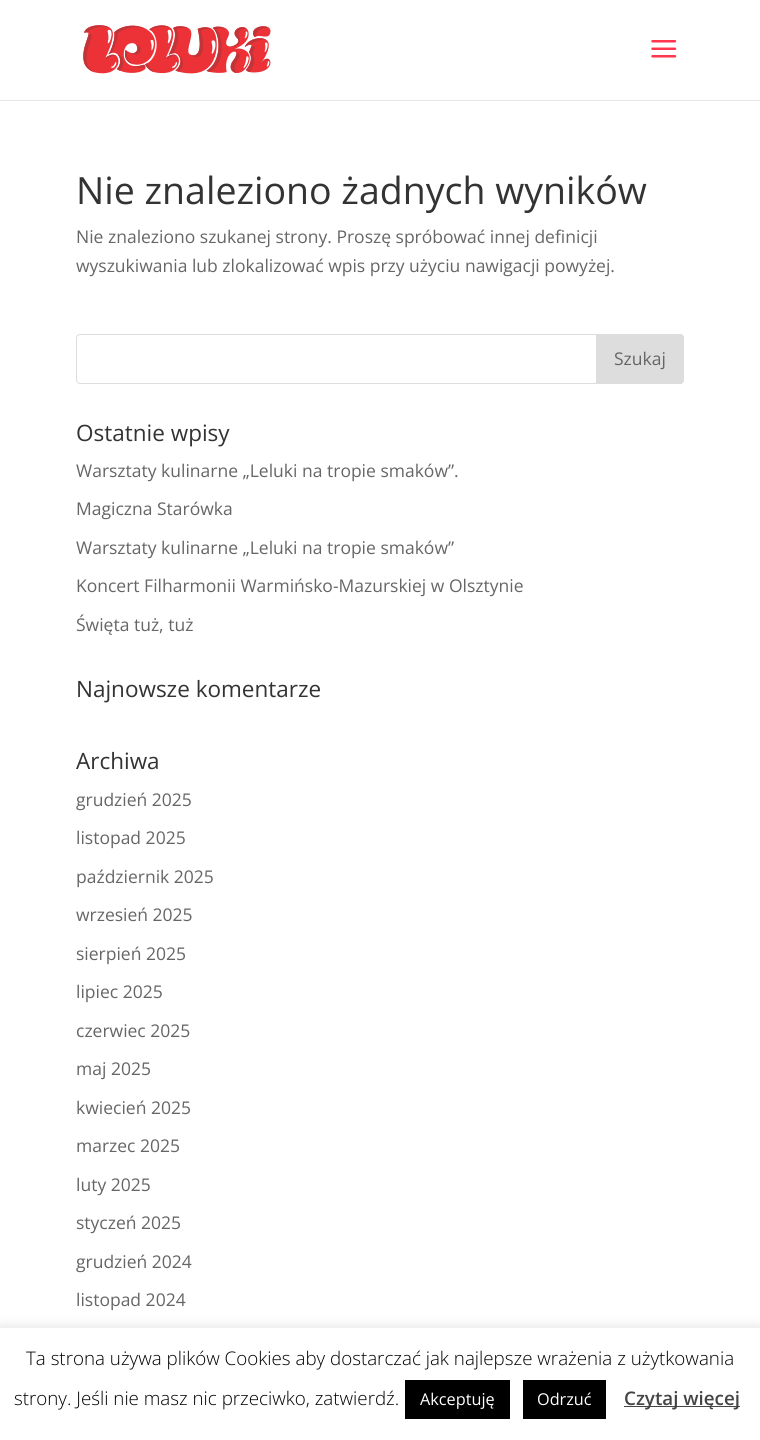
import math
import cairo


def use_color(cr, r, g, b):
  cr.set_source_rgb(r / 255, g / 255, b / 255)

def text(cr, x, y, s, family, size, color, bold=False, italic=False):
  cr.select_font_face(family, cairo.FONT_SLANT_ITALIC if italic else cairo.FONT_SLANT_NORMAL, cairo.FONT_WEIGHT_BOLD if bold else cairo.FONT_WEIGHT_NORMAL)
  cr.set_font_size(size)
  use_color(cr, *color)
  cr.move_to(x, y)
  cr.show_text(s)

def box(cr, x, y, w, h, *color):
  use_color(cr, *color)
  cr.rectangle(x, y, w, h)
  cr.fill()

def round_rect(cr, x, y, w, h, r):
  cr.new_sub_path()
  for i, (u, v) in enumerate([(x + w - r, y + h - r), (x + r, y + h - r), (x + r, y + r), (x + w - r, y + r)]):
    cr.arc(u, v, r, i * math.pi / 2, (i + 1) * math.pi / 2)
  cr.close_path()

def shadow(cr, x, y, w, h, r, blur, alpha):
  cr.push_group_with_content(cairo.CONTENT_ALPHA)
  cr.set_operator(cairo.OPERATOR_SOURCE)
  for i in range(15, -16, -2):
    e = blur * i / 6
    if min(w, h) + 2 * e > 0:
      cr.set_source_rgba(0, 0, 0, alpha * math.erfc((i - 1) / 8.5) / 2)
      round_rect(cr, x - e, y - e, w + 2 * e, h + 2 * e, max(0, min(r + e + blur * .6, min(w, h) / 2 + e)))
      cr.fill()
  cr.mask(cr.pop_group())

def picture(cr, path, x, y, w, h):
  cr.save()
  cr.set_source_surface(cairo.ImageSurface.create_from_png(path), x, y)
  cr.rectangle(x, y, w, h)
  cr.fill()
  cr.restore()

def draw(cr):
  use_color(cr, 255, 255, 255)
  cr.paint()
  box(cr, 0, 100, 760, 1, 230, 230, 230)
  picture(cr, "img_01.png", 83, 25, 188, 49)
  picture(cr, "img_02.png", 651, 40, 26, 18)
  round_rect(cr, 76.5, 334.5, 607, 49, 3.5)
  use_color(cr, 221, 221, 221)
  cr.set_line_width(1)
  cr.stroke()
  cr.new_path()
  cr.move_to(596.5, 334.5)
  cr.line_to(680, 334.5)
  cr.curve_to(682, 334.5, 683.5, 336, 683.5, 338)
  cr.line_to(683.5, 380)
  cr.curve_to(683.5, 382, 682, 383.5, 680, 383.5)
  cr.line_to(596.5, 383.5)
  cr.close_path()
  cr.fill_preserve()
  cr.stroke()
  use_color(cr, 172, 171, 171)
  shadow(cr, 0, 1326, 760, 113, 0, 6, 0.3)
  box(cr, 0, 1328, 760, 112, 255, 255, 255)
  box(cr, 405, 1380, 105, 39, 0, 0, 0)
  box(cr, 523, 1380, 83, 39, 0, 0, 0)
  box(cr, 624, 1406, 116, 1, 68, 68, 68)
  text(cr, 76, 204, "Nie znaleziono żadnych wyników", "Open Sans", 37.5, (51, 51, 51))
  text(cr, 76, 243, "Nie znaleziono szukanej strony. Proszę spróbować innej definicji", "Open Sans", 17.5, (102, 102, 102))
  text(cr, 76, 272, "wyszukiwania lub zlokalizować wpis przy użyciu nawigacji powyżej.", "Open Sans", 17.5, (102, 102, 102))
  text(cr, 614, 365, "Szukaj", "Open Sans", 17.5, (102, 102, 102))
  text(cr, 76, 441, "Ostatnie wpisy", "Open Sans", 22.5, (51, 51, 51))
  text(cr, 76, 477, "Warsztaty kulinarne „Leluki na tropie smaków”.", "Open Sans", 17.5, (102, 102, 102))
  text(cr, 76, 515, "Magiczna Starówka", "Open Sans", 17.5, (102, 102, 102))
  text(cr, 76, 554, "Warsztaty kulinarne „Leluki na tropie smaków”", "Open Sans", 17.5, (102, 102, 102))
  text(cr, 76, 592, "Koncert Filharmonii Warmińsko-Mazurskiej w Olsztynie", "Open Sans", 17.5, (102, 102, 102))
  text(cr, 76, 631, "Święta tuż, tuż", "Open Sans", 17.5, (102, 102, 102))
  text(cr, 76, 697, "Najnowsze komentarze", "Open Sans", 22.5, (51, 51, 51))
  text(cr, 76, 769, "Archiwa", "Open Sans", 22.5, (51, 51, 51))
  text(cr, 76, 806, "grudzień 2025", "Open Sans", 17.5, (102, 102, 102))
  text(cr, 76, 844, "listopad 2025", "Open Sans", 17.5, (102, 102, 102))
  text(cr, 76, 883, "październik 2025", "Open Sans", 17.5, (102, 102, 102))
  text(cr, 76, 921, "wrzesień 2025", "Open Sans", 17.5, (102, 102, 102))
  text(cr, 76, 960, "sierpień 2025", "Open Sans", 17.5, (102, 102, 102))
  text(cr, 76, 998, "lipiec 2025", "Open Sans", 17.5, (102, 102, 102))
  text(cr, 76, 1037, "czerwiec 2025", "Open Sans", 17.5, (102, 102, 102))
  text(cr, 76, 1075, "maj 2025", "Open Sans", 17.5, (102, 102, 102))
  text(cr, 76, 1114, "kwiecień 2025", "Open Sans", 17.5, (102, 102, 102))
  text(cr, 76, 1152, "marzec 2025", "Open Sans", 17.5, (102, 102, 102))
  text(cr, 76, 1191, "luty 2025", "Open Sans", 17.5, (102, 102, 102))
  text(cr, 76, 1229, "styczeń 2025", "Open Sans", 17.5, (102, 102, 102))
  text(cr, 76, 1268, "grudzień 2024", "Open Sans", 17.5, (102, 102, 102))
  text(cr, 76, 1306, "listopad 2024", "Open Sans", 17.5, (102, 102, 102))
  text(cr, 26, 1365, "Ta strona używa plików Cookies aby dostarczać jak najlepsze wrażenia z użytkowania", "Open Sans Light", 18.75, (0, 0, 0))
  text(cr, 14, 1405, "strony. Jeśli nie masz nic przeciwko, zatwierdź.", "Open Sans Light", 18.75, (0, 0, 0))
  text(cr, 420, 1405, "Akceptuję", "Open Sans", 16.25, (255, 255, 255))
  text(cr, 537, 1405, "Odrzuć", "Open Sans", 16.25, (255, 255, 255))
  text(cr, 624, 1405, "Czytaj więcej", "Open Sans SemiBold", 18.75, (68, 68, 68))


surface = cairo.ImageSurface(cairo.FORMAT_RGB24, 760, 1440)
cr = cairo.Context(surface)
options = cairo.FontOptions()
options.set_hint_metrics(cairo.HINT_METRICS_OFF)
options.set_hint_style(cairo.HINT_STYLE_NONE)
cr.set_font_options(options)
cr.set_miter_limit(4)
draw(cr)
surface.write_to_png("out.png")
